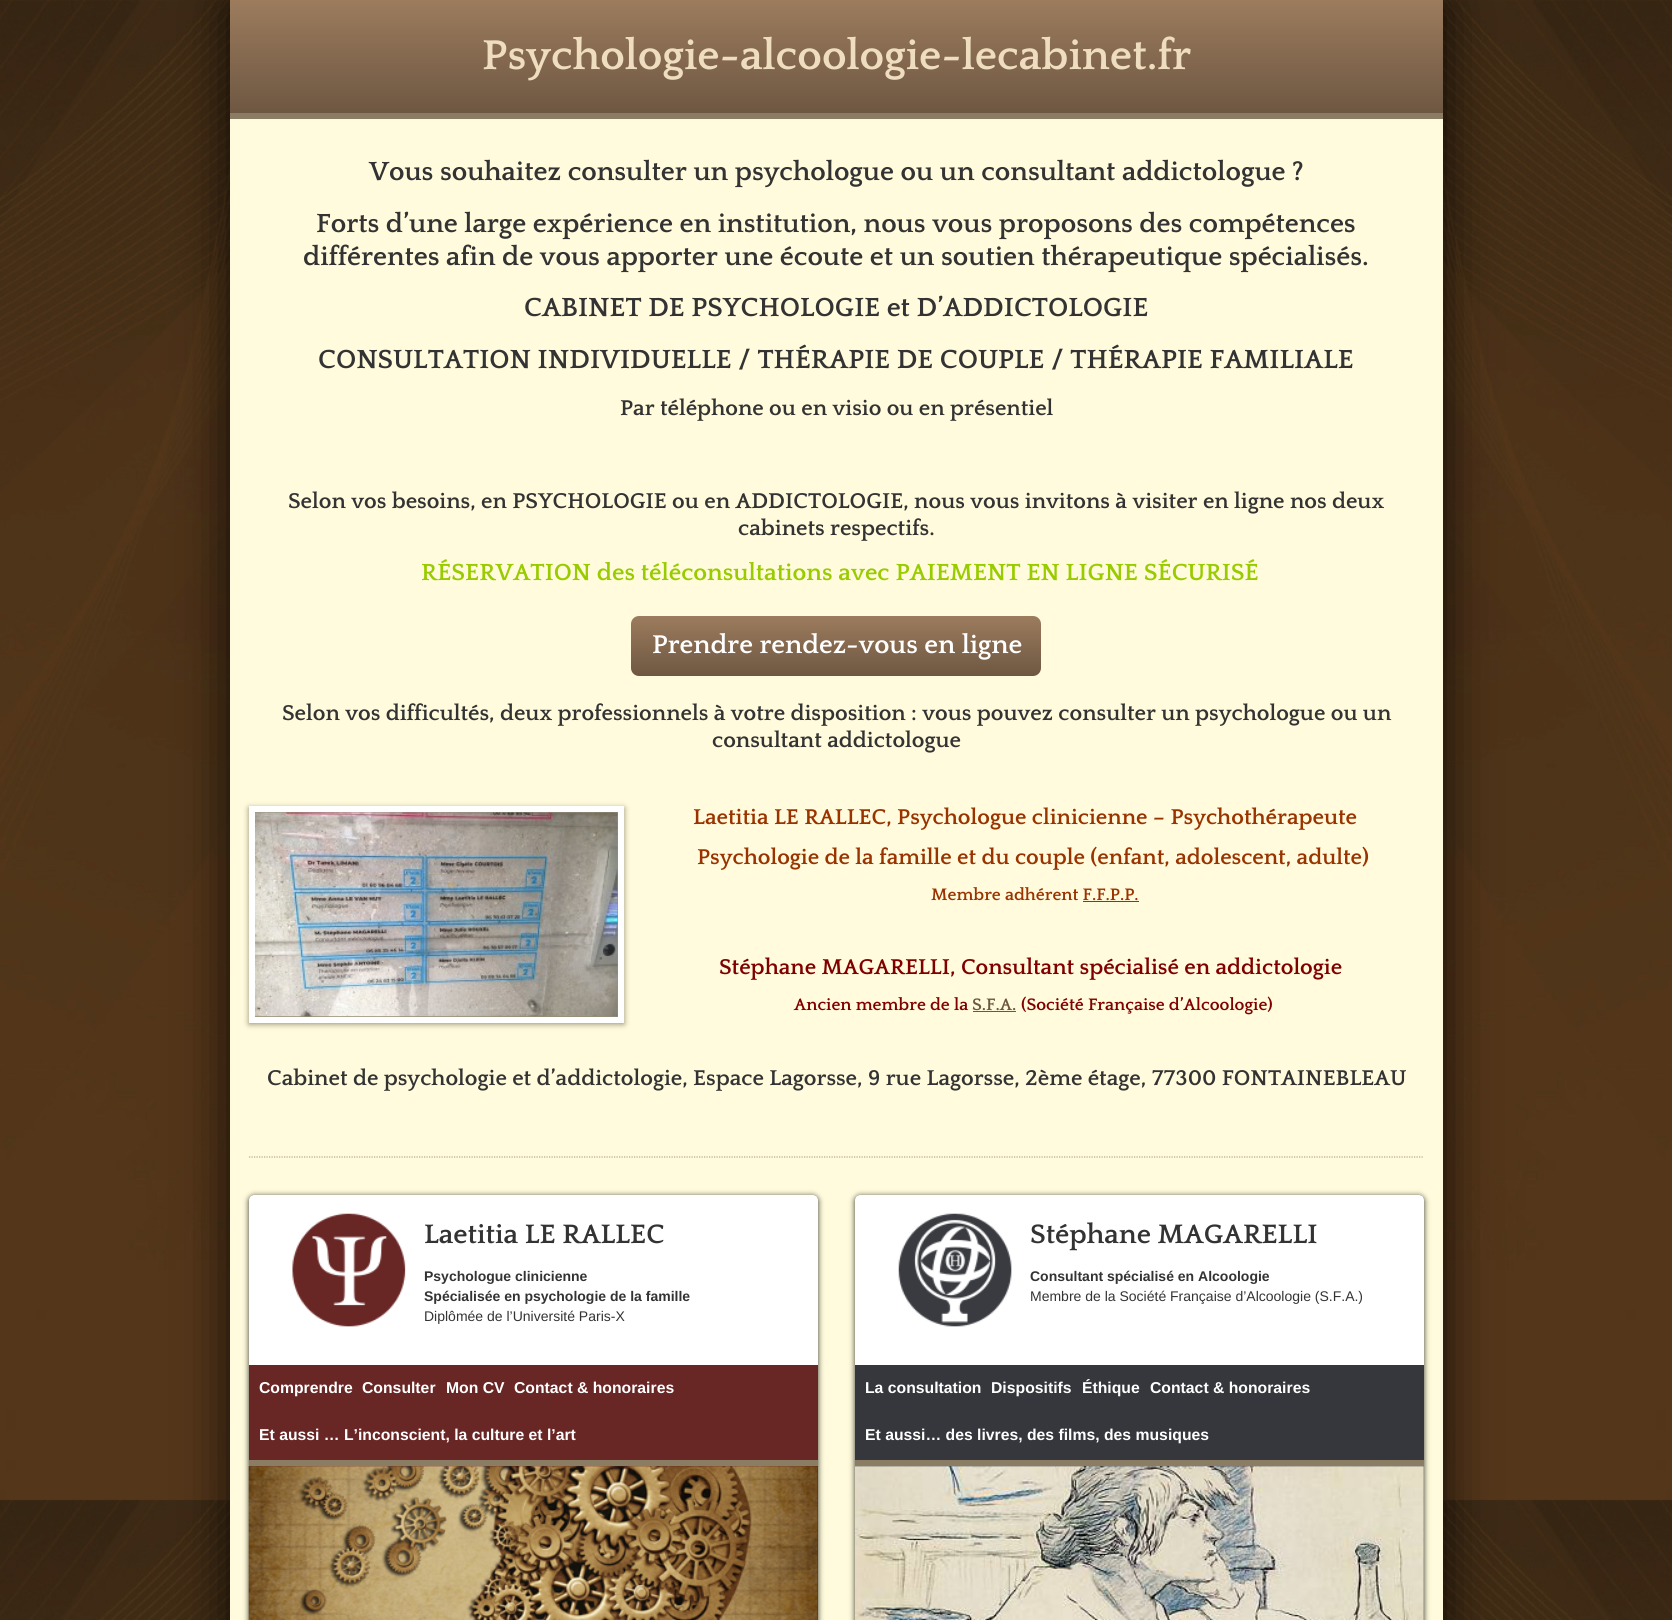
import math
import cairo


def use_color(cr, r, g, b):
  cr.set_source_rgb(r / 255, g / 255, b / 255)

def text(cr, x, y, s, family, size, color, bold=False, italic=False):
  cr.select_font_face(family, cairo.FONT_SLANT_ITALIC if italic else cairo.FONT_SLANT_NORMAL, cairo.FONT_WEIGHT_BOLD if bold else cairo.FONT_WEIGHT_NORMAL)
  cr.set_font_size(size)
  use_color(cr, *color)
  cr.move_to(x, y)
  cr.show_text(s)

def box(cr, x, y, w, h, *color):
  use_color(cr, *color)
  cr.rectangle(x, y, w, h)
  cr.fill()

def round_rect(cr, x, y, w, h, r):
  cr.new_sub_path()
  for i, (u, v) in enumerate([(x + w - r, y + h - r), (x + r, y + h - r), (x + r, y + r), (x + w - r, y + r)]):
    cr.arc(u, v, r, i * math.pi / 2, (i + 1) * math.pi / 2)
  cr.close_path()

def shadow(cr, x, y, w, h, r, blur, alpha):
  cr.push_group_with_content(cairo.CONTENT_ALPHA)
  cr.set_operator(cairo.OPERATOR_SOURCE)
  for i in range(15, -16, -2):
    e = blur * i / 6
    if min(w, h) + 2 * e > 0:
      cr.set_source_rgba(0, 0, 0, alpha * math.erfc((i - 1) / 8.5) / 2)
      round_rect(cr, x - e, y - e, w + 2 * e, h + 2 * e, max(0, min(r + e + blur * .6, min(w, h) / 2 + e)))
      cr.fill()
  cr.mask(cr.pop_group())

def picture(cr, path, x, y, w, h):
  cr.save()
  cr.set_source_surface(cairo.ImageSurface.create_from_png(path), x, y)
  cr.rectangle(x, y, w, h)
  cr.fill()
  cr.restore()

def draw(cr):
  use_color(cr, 255, 255, 255)
  cr.paint()
  picture(cr, "img_01.png", 0, 0, 1672, 1620)
  use_color(cr, 0, 0, 0)
  shadow(cr, 230, 0, 1213, 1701, 6, 25, 0.8)
  box(cr, 230, 119, 1213, 1501, 255, 251, 220)
  gradient = cairo.LinearGradient(836, 0, 836, 113)
  gradient.add_color_stop_rgba(0, 0.612, 0.486, 0.365, 1)
  gradient.add_color_stop_rgba(1, 0.431, 0.341, 0.259, 1)
  cr.set_source(gradient)
  cr.rectangle(230, 0, 1213, 113)
  cr.fill()
  box(cr, 230, 113, 1213, 6, 139, 124, 100)
  gradient = cairo.LinearGradient(836, 616, 836, 676)
  gradient.add_color_stop_rgba(0, 0.612, 0.486, 0.365, 1)
  gradient.add_color_stop_rgba(1, 0.431, 0.341, 0.259, 1)
  cr.set_source(gradient)
  round_rect(cr, 631, 616, 410, 60, 8)
  cr.fill()
  use_color(cr, 42, 28, 13)
  shadow(cr, 249, 808, 375, 216, 0, 3, 0.5)
  cr.rectangle(252, 809, 369, 211)
  use_color(cr, 255, 255, 255)
  cr.set_line_width(6)
  cr.stroke()
  picture(cr, "img_02.png", 255, 812, 363, 205)
  box(cr, 1083, 901, 56, 1, 153, 51, 0)
  box(cr, 973, 1011, 43, 1, 109, 87, 65)
  cr.new_path()
  cr.move_to(249, 1157)
  cr.line_to(1424, 1157)
  use_color(cr, 184, 166, 138)
  cr.set_line_width(1.2)
  cr.set_dash([1.25, 1.25])
  cr.stroke()
  use_color(cr, 0, 0, 0)
  shadow(cr, 249, 1196, 569, 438, 5, 3, 0.8)
  use_color(cr, 104, 38, 37)
  round_rect(cr, 249, 1195, 569, 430, 5)
  cr.fill()
  use_color(cr, 255, 255, 255)
  cr.new_path()
  cr.move_to(254, 1195)
  cr.line_to(813, 1195)
  cr.curve_to(816, 1195, 818, 1197, 818, 1200)
  cr.line_to(818, 1365)
  cr.line_to(249, 1365)
  cr.line_to(249, 1200)
  cr.curve_to(249, 1197, 251, 1195, 254, 1195)
  cr.close_path()
  cr.fill()
  picture(cr, "img_03.png", 292, 1213, 114, 114)
  box(cr, 249, 1460, 569, 6, 139, 124, 100)
  picture(cr, "img_04.png", 248, 1466, 570, 154)
  use_color(cr, 0, 0, 0)
  shadow(cr, 855, 1196, 569, 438, 5, 3, 0.8)
  use_color(cr, 53, 55, 60)
  round_rect(cr, 855, 1195, 569, 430, 5)
  cr.fill()
  use_color(cr, 255, 255, 255)
  cr.new_path()
  cr.move_to(860, 1195)
  cr.line_to(1419, 1195)
  cr.curve_to(1422, 1195, 1424, 1197, 1424, 1200)
  cr.line_to(1424, 1365)
  cr.line_to(855, 1365)
  cr.line_to(855, 1200)
  cr.curve_to(855, 1197, 857, 1195, 860, 1195)
  cr.close_path()
  cr.fill()
  picture(cr, "img_05.png", 898, 1213, 114, 114)
  box(cr, 855, 1460, 569, 6, 139, 124, 100)
  picture(cr, "img_06.png", 855, 1466, 569, 154)
  text(cr, 482, 69, "Psychologie-alcoologie-lecabinet.fr", "Quattrocento", 43.75, (238, 221, 191), bold=True)
  text(cr, 369, 180, "Vous souhaitez consulter un psychologue ou un consultant addictologue ?", "Quattrocento", 27.5, (51, 51, 51), bold=True)
  text(cr, 316, 232, "Forts d’une large expérience en institution, nous vous proposons des compétences", "Quattrocento", 27.5, (51, 51, 51), bold=True)
  text(cr, 303, 265, "différentes afin de vous apporter une écoute et un soutien thérapeutique spécialisés.", "Quattrocento", 27.5, (51, 51, 51), bold=True)
  text(cr, 524, 316, "CABINET DE PSYCHOLOGIE et D’ADDICTOLOGIE", "Quattrocento", 27.5, (51, 51, 51), bold=True)
  text(cr, 318, 368, "CONSULTATION INDIVIDUELLE / THÉRAPIE DE COUPLE / THÉRAPIE FAMILIALE", "Quattrocento", 27.5, (51, 51, 51), bold=True)
  text(cr, 620, 415, "Par téléphone ou en visio ou en présentiel", "Quattrocento", 22.5, (51, 51, 51), bold=True)
  text(cr, 288, 508, "Selon vos besoins, en PSYCHOLOGIE ou en ADDICTOLOGIE, nous vous invitons à visiter en ligne nos deux", "Quattrocento", 22.5, (51, 51, 51), bold=True)
  text(cr, 738, 535, "cabinets respectifs.", "Quattrocento", 22.5, (51, 51, 51), bold=True)
  text(cr, 421, 580, "RÉSERVATION des téléconsultations avec PAIEMENT EN LIGNE SÉCURISÉ", "Quattrocento", 24.5, (153, 204, 0), bold=True)
  text(cr, 652, 653, "Prendre rendez-vous en ligne", "Quattrocento", 27, (255, 255, 255), bold=True)
  text(cr, 282, 720, "Selon vos difficultés, deux professionnels à votre disposition : vous pouvez consulter un psychologue ou un", "Quattrocento", 22.5, (51, 51, 51), bold=True)
  text(cr, 712, 747, "consultant addictologue", "Quattrocento", 22.5, (51, 51, 51), bold=True)
  text(cr, 693, 824, "Laetitia LE RALLEC, Psychologue clinicienne – Psychothérapeute", "Quattrocento", 22.5, (153, 51, 0), bold=True)
  text(cr, 697, 864, "Psychologie de la famille et du couple (enfant, adolescent, adulte)", "Quattrocento", 22.5, (153, 51, 0), bold=True)
  text(cr, 931, 900, "Membre adhérent F.F.P.P.", "Quattrocento", 17.5, (153, 51, 0), bold=True)
  text(cr, 719, 974, "Stéphane MAGARELLI, Consultant spécialisé en addictologie", "Quattrocento", 22.5, (128, 0, 0), bold=True)
  text(cr, 794, 1010, "Ancien membre de la", "Quattrocento", 17.5, (128, 0, 0), bold=True)
  text(cr, 972, 1010, "S.F.A.", "Quattrocento", 17.5, (109, 87, 65), bold=True)
  text(cr, 1021, 1010, "(Société Française d’Alcoologie)", "Quattrocento", 17.5, (128, 0, 0), bold=True)
  text(cr, 267, 1085, "Cabinet de psychologie et d’addictologie, Espace Lagorsse, 9 rue Lagorsse, 2ème étage, 77300 FONTAINEBLEAU", "Quattrocento", 22.5, (51, 51, 51), bold=True)
  text(cr, 424, 1243, "Laetitia LE RALLEC", "Quattrocento", 28, (51, 51, 51), bold=True)
  text(cr, 424, 1281, "Psychologue clinicienne", "Liberation Sans", 14, (51, 51, 51), bold=True)
  text(cr, 424, 1301, "Spécialisée en psychologie de la famille", "Liberation Sans", 14, (51, 51, 51), bold=True)
  text(cr, 424, 1321, "Diplômée de l’Université Paris-X", "Liberation Sans", 14, (51, 51, 51))
  text(cr, 259, 1393, "Comprendre", "Liberation Sans", 15.75, (255, 255, 255), bold=True)
  text(cr, 362, 1393, "Consulter", "Liberation Sans", 15.75, (255, 255, 255), bold=True)
  text(cr, 446, 1393, "Mon CV", "Liberation Sans", 15.75, (255, 255, 255), bold=True)
  text(cr, 514, 1393, "Contact & honoraires", "Liberation Sans", 15.75, (255, 255, 255), bold=True)
  text(cr, 259, 1440, "Et aussi … L’inconscient, la culture et l’art", "Liberation Sans", 15.75, (255, 255, 255), bold=True)
  text(cr, 1030, 1243, "Stéphane MAGARELLI", "Quattrocento", 28, (51, 51, 51), bold=True)
  text(cr, 1030, 1281, "Consultant spécialisé en Alcoologie", "Liberation Sans", 14, (51, 51, 51), bold=True)
  text(cr, 1030, 1301, "Membre de la Société Française d’Alcoologie (S.F.A.)", "Liberation Sans", 14, (51, 51, 51))
  text(cr, 865, 1393, "La consultation", "Liberation Sans", 15.75, (255, 255, 255), bold=True)
  text(cr, 991, 1393, "Dispositifs", "Liberation Sans", 15.75, (255, 255, 255), bold=True)
  text(cr, 1082, 1393, "Éthique", "Liberation Sans", 15.75, (255, 255, 255), bold=True)
  text(cr, 1150, 1393, "Contact & honoraires", "Liberation Sans", 15.75, (255, 255, 255), bold=True)
  text(cr, 865, 1440, "Et aussi… des livres, des films, des musiques", "Liberation Sans", 15.75, (255, 255, 255), bold=True)


surface = cairo.ImageSurface(cairo.FORMAT_RGB24, 1672, 1620)
cr = cairo.Context(surface)
options = cairo.FontOptions()
options.set_hint_metrics(cairo.HINT_METRICS_OFF)
options.set_hint_style(cairo.HINT_STYLE_NONE)
cr.set_font_options(options)
cr.set_miter_limit(4)
draw(cr)
surface.write_to_png("out.png")
